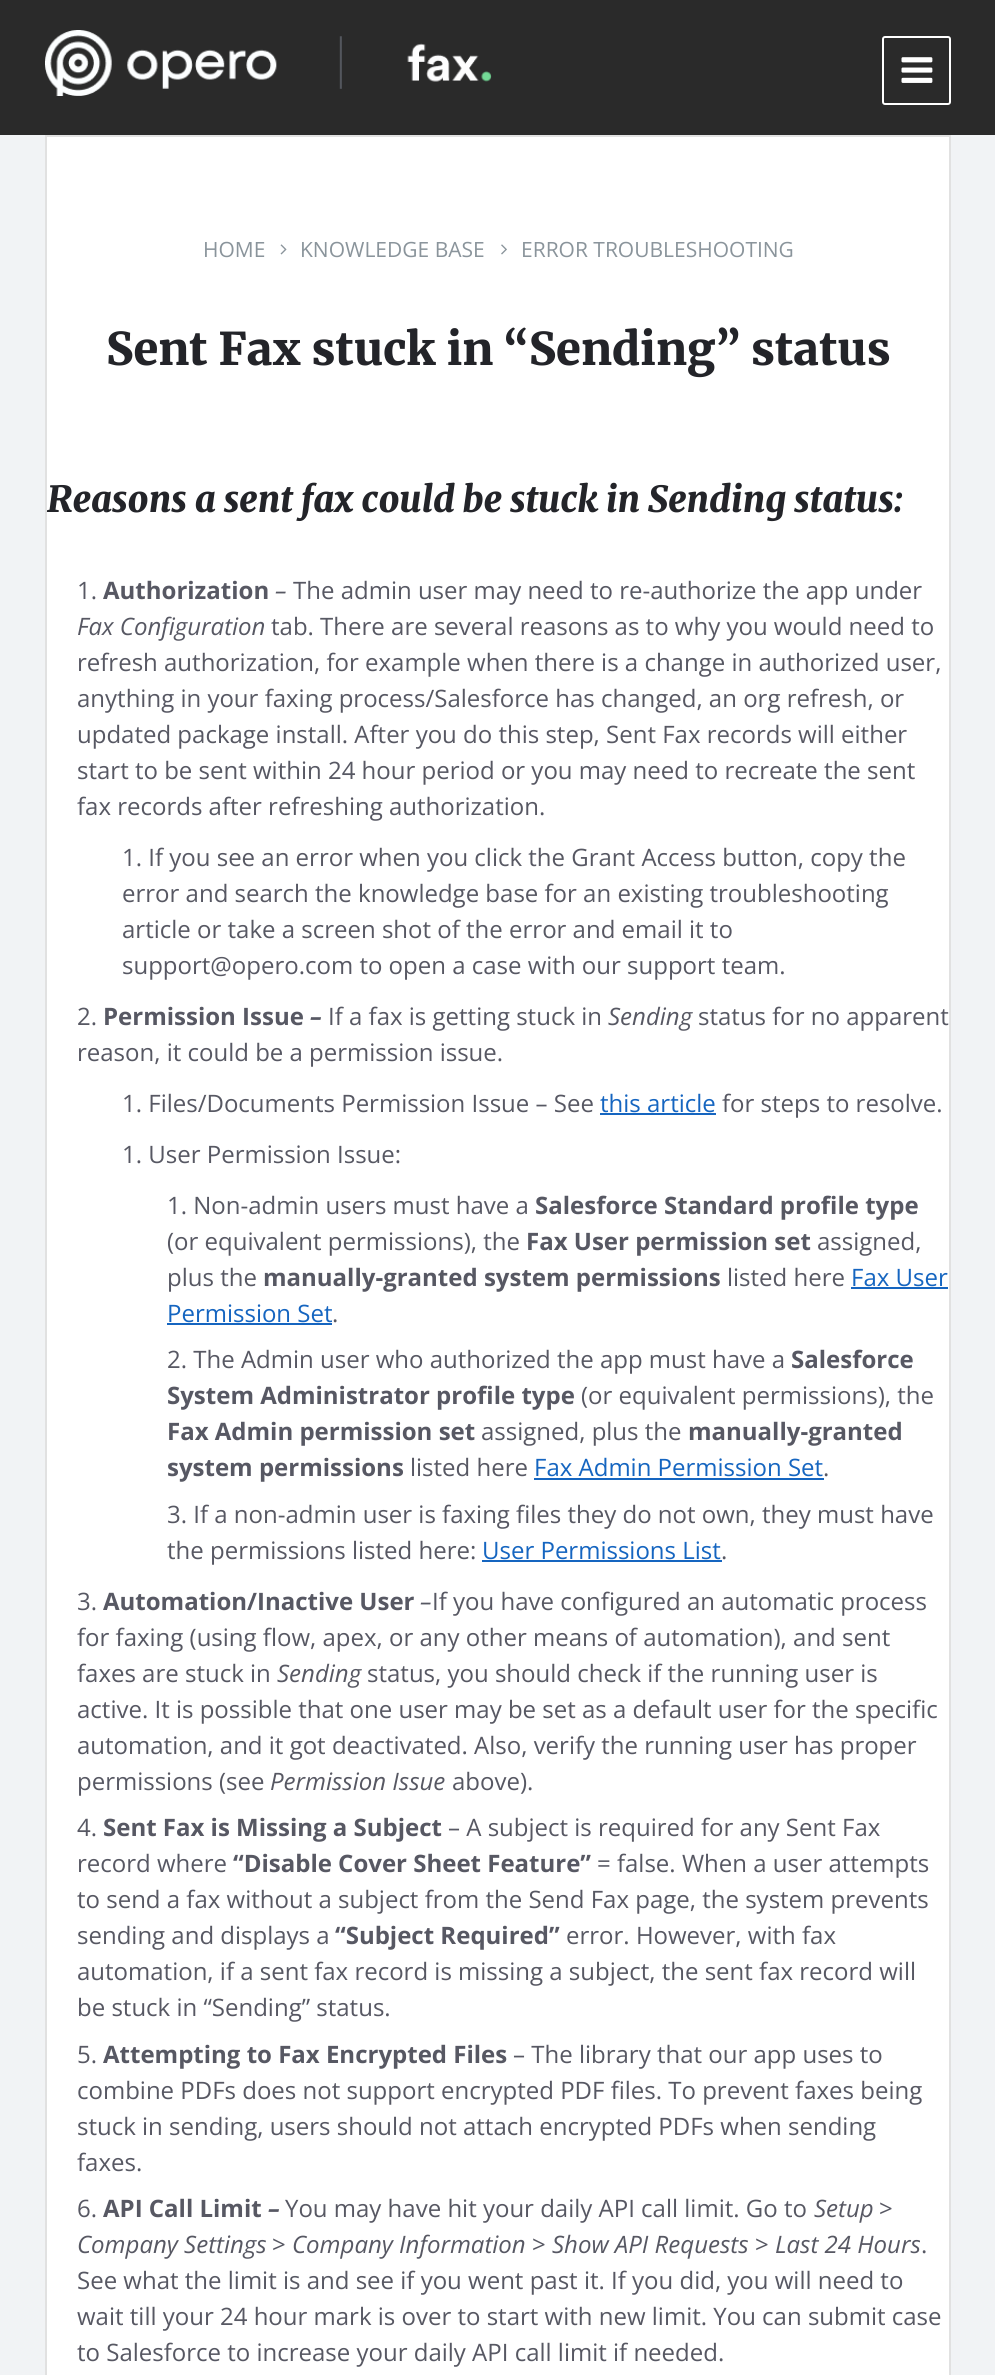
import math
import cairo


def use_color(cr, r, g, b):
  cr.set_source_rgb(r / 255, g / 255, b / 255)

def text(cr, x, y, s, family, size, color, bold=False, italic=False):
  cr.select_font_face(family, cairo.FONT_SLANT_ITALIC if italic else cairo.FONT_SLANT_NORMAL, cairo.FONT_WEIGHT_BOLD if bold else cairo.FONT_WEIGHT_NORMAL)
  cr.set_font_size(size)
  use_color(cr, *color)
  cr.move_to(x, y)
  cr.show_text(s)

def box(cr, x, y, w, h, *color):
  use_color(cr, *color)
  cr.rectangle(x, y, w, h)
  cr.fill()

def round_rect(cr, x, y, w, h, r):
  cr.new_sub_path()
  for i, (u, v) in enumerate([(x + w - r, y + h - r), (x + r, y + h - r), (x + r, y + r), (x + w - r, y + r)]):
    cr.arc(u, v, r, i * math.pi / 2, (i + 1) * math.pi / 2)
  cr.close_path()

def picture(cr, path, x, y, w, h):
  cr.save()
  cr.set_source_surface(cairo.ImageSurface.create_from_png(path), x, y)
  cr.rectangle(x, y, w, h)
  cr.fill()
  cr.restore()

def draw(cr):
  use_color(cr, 241, 243, 245)
  cr.paint()
  box(cr, 0, 0, 995, 135, 42, 42, 42)
  picture(cr, "img_01.png", 45, 30, 447, 66)
  round_rect(cr, 883, 37, 67, 67, 2)
  use_color(cr, 255, 255, 255)
  cr.stroke()
  picture(cr, "img_02.png", 901, 57, 32, 26)
  cr.rectangle(46, 136, 904, 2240)
  cr.fill_preserve()
  use_color(cr, 225, 225, 225)
  cr.stroke()
  picture(cr, "img_03.png", 280, 244, 7, 11)
  picture(cr, "img_04.png", 501, 244, 6, 11)
  box(cr, 600, 1113, 116, 2, 21, 101, 192)
  box(cr, 851, 1287, 97, 2, 21, 101, 192)
  box(cr, 167, 1323, 165, 2, 21, 101, 192)
  box(cr, 534, 1478, 290, 2, 21, 101, 192)
  box(cr, 482, 1560, 240, 2, 21, 101, 192)
  text(cr, 203, 257, "HOME", "Open Sans", 21, (138, 148, 155))
  text(cr, 300, 257, "KNOWLEDGE BASE", "Open Sans", 21, (138, 148, 155))
  text(cr, 521, 257, "ERROR TROUBLESHOOTING", "Open Sans", 21, (138, 148, 155))
  text(cr, 106, 365, "Sent Fax stuck in “Sending” status", "Merriweather Black", 45, (35, 36, 41))
  text(cr, 47, 512, "Reasons a sent fax could be stuck in Sending status:", "Merriweather Black", 36, (35, 36, 41), italic=True)
  text(cr, 77, 599, "1.", "Open Sans", 24, (87, 88, 99))
  text(cr, 103, 599, "Authorization", "Open Sans", 24, (87, 88, 99), bold=True)
  text(cr, 275, 599, "–", "Open Sans", 24, (87, 88, 99), italic=True)
  text(cr, 293, 599, "The admin user may need to re-authorize the app under", "Open Sans", 24, (87, 88, 99))
  text(cr, 77, 635, "Fax Configuration", "Open Sans", 24, (87, 88, 99), italic=True)
  text(cr, 271, 635, "tab. There are several reasons as to why you would need to", "Open Sans", 24, (87, 88, 99))
  text(cr, 77, 671, "refresh authorization, for example when there is a change in authorized user,", "Open Sans", 24, (87, 88, 99))
  text(cr, 77, 707, "anything in your faxing process/Salesforce has changed, an org refresh, or", "Open Sans", 24, (87, 88, 99))
  text(cr, 77, 743, "updated package install. After you do this step, Sent Fax records will either", "Open Sans", 24, (87, 88, 99))
  text(cr, 77, 779, "start to be sent within 24 hour period or you may need to recreate the sent", "Open Sans", 24, (87, 88, 99))
  text(cr, 77, 815, "fax records after refreshing authorization.", "Open Sans", 24, (87, 88, 99))
  text(cr, 122, 866, "1. If you see an error when you click the Grant Access button, copy the", "Open Sans", 24, (87, 88, 99))
  text(cr, 122, 902, "error and search the knowledge base for an existing troubleshooting", "Open Sans", 24, (87, 88, 99))
  text(cr, 122, 938, "article or take a screen shot of the error and email it to", "Open Sans", 24, (87, 88, 99))
  text(cr, 122, 974, "support@opero.com to open a case with our support team.", "Open Sans", 24, (87, 88, 99))
  text(cr, 77, 1025, "2.", "Open Sans", 24, (87, 88, 99))
  text(cr, 103, 1025, "Permission Issue", "Open Sans", 24, (87, 88, 99), bold=True)
  text(cr, 310, 1025, "–", "Open Sans", 24, (87, 88, 99), bold=True, italic=True)
  text(cr, 328, 1025, "If a fax is getting stuck in", "Open Sans", 24, (87, 88, 99))
  text(cr, 608, 1025, "Sending", "Open Sans", 24, (87, 88, 99), italic=True)
  text(cr, 698, 1025, "status for no apparent", "Open Sans", 24, (87, 88, 99))
  text(cr, 77, 1061, "reason, it could be a permission issue.", "Open Sans", 24, (87, 88, 99))
  text(cr, 122, 1112, "1. Files/Documents Permission Issue – See", "Open Sans", 24, (87, 88, 99))
  text(cr, 600, 1112, "this article", "Open Sans", 24, (21, 101, 192))
  text(cr, 722, 1112, "for steps to resolve.", "Open Sans", 24, (87, 88, 99))
  text(cr, 122, 1163, "1. User Permission Issue:", "Open Sans", 24, (87, 88, 99))
  text(cr, 167, 1214, "1. Non-admin users must have a", "Open Sans", 24, (87, 88, 99))
  text(cr, 535, 1214, "Salesforce Standard profile type", "Open Sans", 24, (87, 88, 99), bold=True)
  text(cr, 167, 1250, "(or equivalent permissions), the", "Open Sans", 24, (87, 88, 99))
  text(cr, 526, 1250, "Fax User permission set", "Open Sans", 24, (87, 88, 99), bold=True)
  text(cr, 817, 1250, "assigned,", "Open Sans", 24, (87, 88, 99))
  text(cr, 167, 1286, "plus the", "Open Sans", 24, (87, 88, 99))
  text(cr, 263, 1286, "manually-granted system permissions", "Open Sans", 24, (87, 88, 99), bold=True)
  text(cr, 727, 1286, "listed here", "Open Sans", 24, (87, 88, 99))
  text(cr, 851, 1286, "Fax User", "Open Sans", 24, (21, 101, 192))
  text(cr, 167, 1322, "Permission Set", "Open Sans", 24, (21, 101, 192))
  text(cr, 332, 1322, ".", "Open Sans", 24, (87, 88, 99))
  text(cr, 167, 1368, "2. The Admin user who authorized the app must have a", "Open Sans", 24, (87, 88, 99))
  text(cr, 791, 1368, "Salesforce", "Open Sans", 24, (87, 88, 99), bold=True)
  text(cr, 167, 1404, "System Administrator profile type", "Open Sans", 24, (87, 88, 99), bold=True)
  text(cr, 581, 1404, "(or equivalent permissions), the", "Open Sans", 24, (87, 88, 99))
  text(cr, 167, 1440, "Fax Admin permission set", "Open Sans", 24, (87, 88, 99), bold=True)
  text(cr, 481, 1440, "assigned, plus the", "Open Sans", 24, (87, 88, 99))
  text(cr, 688, 1440, "manually-granted", "Open Sans", 24, (87, 88, 99), bold=True)
  text(cr, 167, 1476, "system permissions", "Open Sans", 24, (87, 88, 99), bold=True)
  text(cr, 410, 1476, "listed here", "Open Sans", 24, (87, 88, 99))
  text(cr, 534, 1476, "Fax Admin Permission Set", "Open Sans", 24, (21, 101, 192))
  text(cr, 823, 1476, ".", "Open Sans", 24, (87, 88, 99))
  text(cr, 167, 1523, "3. If a non-admin user is faxing files they do not own, they must have", "Open Sans", 24, (87, 88, 99))
  text(cr, 167, 1559, "the permissions listed here:", "Open Sans", 24, (87, 88, 99))
  text(cr, 482, 1559, "User Permissions List", "Open Sans", 24, (21, 101, 192))
  text(cr, 721, 1559, ".", "Open Sans", 24, (87, 88, 99))
  text(cr, 77, 1610, "3.", "Open Sans", 24, (87, 88, 99))
  text(cr, 103, 1610, "Automation/Inactive User", "Open Sans", 24, (87, 88, 99), bold=True)
  text(cr, 420, 1610, "–", "Open Sans", 24, (87, 88, 99), italic=True)
  text(cr, 432, 1610, "If you have configured an automatic process", "Open Sans", 24, (87, 88, 99))
  text(cr, 77, 1646, "for faxing (using flow, apex, or any other means of automation), and sent", "Open Sans", 24, (87, 88, 99))
  text(cr, 77, 1682, "faxes are stuck in", "Open Sans", 24, (87, 88, 99))
  text(cr, 277, 1682, "Sending", "Open Sans", 24, (87, 88, 99), italic=True)
  text(cr, 367, 1682, "status, you should check if the running user is", "Open Sans", 24, (87, 88, 99))
  text(cr, 77, 1718, "active. It is possible that one user may be set as a default user for the specific", "Open Sans", 24, (87, 88, 99))
  text(cr, 77, 1754, "automation, and it got deactivated. Also, verify the running user has proper", "Open Sans", 24, (87, 88, 99))
  text(cr, 77, 1790, "permissions (see", "Open Sans", 24, (87, 88, 99))
  text(cr, 270, 1790, "Permission Issue", "Open Sans", 24, (87, 88, 99), italic=True)
  text(cr, 452, 1790, "above).", "Open Sans", 24, (87, 88, 99))
  text(cr, 77, 1836, "4.", "Open Sans", 24, (87, 88, 99))
  text(cr, 103, 1836, "Sent Fax is Missing a Subject", "Open Sans", 24, (87, 88, 99), bold=True)
  text(cr, 448, 1836, "– A subject is required for any Sent Fax", "Open Sans", 24, (87, 88, 99))
  text(cr, 77, 1872, "record where", "Open Sans", 24, (87, 88, 99))
  text(cr, 233, 1872, "“Disable Cover Sheet Feature”", "Open Sans", 24, (87, 88, 99), bold=True)
  text(cr, 597, 1872, "= false. When a user attempts", "Open Sans", 24, (87, 88, 99))
  text(cr, 77, 1908, "to send a fax without a subject from the Send Fax page, the system prevents", "Open Sans", 24, (87, 88, 99))
  text(cr, 77, 1944, "sending and displays a", "Open Sans", 24, (87, 88, 99))
  text(cr, 335, 1944, "“Subject Required”", "Open Sans", 24, (87, 88, 99), bold=True)
  text(cr, 566, 1944, "error. However, with fax", "Open Sans", 24, (87, 88, 99))
  text(cr, 77, 1980, "automation, if a sent fax record is missing a subject, the sent fax record will", "Open Sans", 24, (87, 88, 99))
  text(cr, 77, 2016, "be stuck in “Sending” status.", "Open Sans", 24, (87, 88, 99))
  text(cr, 77, 2063, "5.", "Open Sans", 24, (87, 88, 99))
  text(cr, 103, 2063, "Attempting to Fax Encrypted Files", "Open Sans", 24, (87, 88, 99), bold=True)
  text(cr, 513, 2063, "– The library that our app uses to", "Open Sans", 24, (87, 88, 99))
  text(cr, 77, 2099, "combine PDFs does not support encrypted PDF files. To prevent faxes being", "Open Sans", 24, (87, 88, 99))
  text(cr, 77, 2135, "stuck in sending, users should not attach encrypted PDFs when sending", "Open Sans", 24, (87, 88, 99))
  text(cr, 77, 2171, "faxes.", "Open Sans", 24, (87, 88, 99))
  text(cr, 77, 2217, "6.", "Open Sans", 24, (87, 88, 99))
  text(cr, 103, 2217, "API Call Limit", "Open Sans", 24, (87, 88, 99), bold=True)
  text(cr, 268, 2217, "–", "Open Sans", 24, (87, 88, 99), bold=True, italic=True)
  text(cr, 285, 2217, "You may have hit your daily API call limit. Go to", "Open Sans", 24, (87, 88, 99))
  text(cr, 814, 2217, "Setup", "Open Sans", 24, (87, 88, 99), italic=True)
  text(cr, 879, 2217, ">", "Open Sans", 24, (87, 88, 99))
  text(cr, 77, 2253, "Company Settings", "Open Sans", 24, (87, 88, 99), italic=True)
  text(cr, 272, 2253, ">", "Open Sans", 24, (87, 88, 99))
  text(cr, 292, 2253, "Company Information", "Open Sans", 24, (87, 88, 99), italic=True)
  text(cr, 532, 2253, ">", "Open Sans", 24, (87, 88, 99))
  text(cr, 552, 2253, "Show API Requests", "Open Sans", 24, (87, 88, 99), italic=True)
  text(cr, 755, 2253, ">", "Open Sans", 24, (87, 88, 99))
  text(cr, 775, 2253, "Last 24 Hours", "Open Sans", 24, (87, 88, 99), italic=True)
  text(cr, 921, 2253, ".", "Open Sans", 24, (87, 88, 99))
  text(cr, 77, 2289, "See what the limit is and see if you went past it. If you did, you will need to", "Open Sans", 24, (87, 88, 99))
  text(cr, 77, 2325, "wait till your 24 hour mark is over to start with new limit. You can submit case", "Open Sans", 24, (87, 88, 99))
  text(cr, 77, 2361, "to Salesforce to increase your daily API call limit if needed.", "Open Sans", 24, (87, 88, 99))


surface = cairo.ImageSurface(cairo.FORMAT_RGB24, 995, 2375)
cr = cairo.Context(surface)
options = cairo.FontOptions()
options.set_hint_metrics(cairo.HINT_METRICS_OFF)
options.set_hint_style(cairo.HINT_STYLE_NONE)
cr.set_font_options(options)
cr.set_miter_limit(4)
draw(cr)
surface.write_to_png("out.png")
